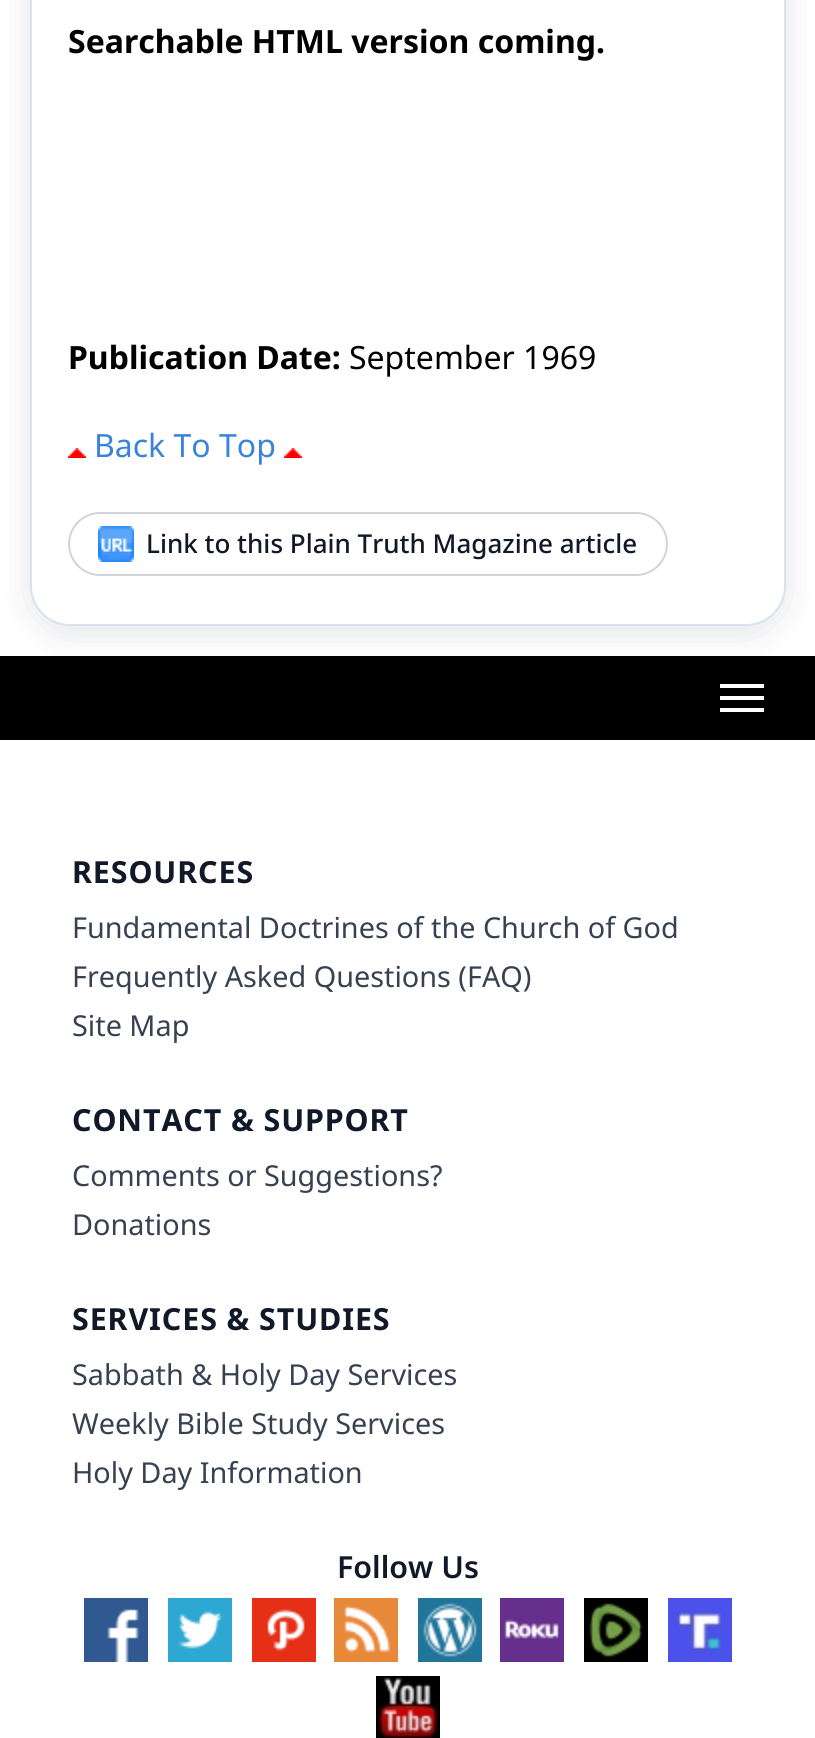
import math
import cairo


def use_color(cr, r, g, b):
  cr.set_source_rgb(r / 255, g / 255, b / 255)

def text(cr, x, y, s, family, size, color, bold=False, italic=False):
  cr.select_font_face(family, cairo.FONT_SLANT_ITALIC if italic else cairo.FONT_SLANT_NORMAL, cairo.FONT_WEIGHT_BOLD if bold else cairo.FONT_WEIGHT_NORMAL)
  cr.set_font_size(size)
  use_color(cr, *color)
  cr.move_to(x, y)
  cr.show_text(s)

def spaced_text(cr, x, y, s, letter, word):
  cr.move_to(x, y)
  for ch in s:
    cr.show_text(ch)
    cr.rel_move_to(letter + word * (ch == ' '), 0)

def box(cr, x, y, w, h, *color):
  use_color(cr, *color)
  cr.rectangle(x, y, w, h)
  cr.fill()

def round_rect(cr, x, y, w, h, r):
  cr.new_sub_path()
  for i, (u, v) in enumerate([(x + w - r, y + h - r), (x + r, y + h - r), (x + r, y + r), (x + w - r, y + r)]):
    cr.arc(u, v, r, i * math.pi / 2, (i + 1) * math.pi / 2)
  cr.close_path()

def shadow(cr, x, y, w, h, r, blur, alpha):
  cr.push_group_with_content(cairo.CONTENT_ALPHA)
  cr.set_operator(cairo.OPERATOR_SOURCE)
  for i in range(15, -16, -2):
    e = blur * i / 6
    if min(w, h) + 2 * e > 0:
      cr.set_source_rgba(0, 0, 0, alpha * math.erfc((i - 1) / 8.5) / 2)
      round_rect(cr, x - e, y - e, w + 2 * e, h + 2 * e, max(0, min(r + e + blur * .6, min(w, h) / 2 + e)))
      cr.fill()
  cr.mask(cr.pop_group())

def picture(cr, path, x, y, w, h):
  cr.save()
  cr.set_source_surface(cairo.ImageSurface.create_from_png(path), x, y)
  cr.rectangle(x, y, w, h)
  cr.fill()
  cr.restore()

def draw(cr):
  use_color(cr, 255, 255, 255)
  cr.paint()
  box(cr, 0, 656, 815, 84, 0, 0, 0)
  use_color(cr, 15, 23, 42)
  shadow(cr, 30, -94, 756, 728, 40, 18, 0.06)
  shadow(cr, 30, -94, 756, 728, 40, 18, 0.06)
  use_color(cr, 255, 255, 255)
  round_rect(cr, 31, -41, 754, 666, 39)
  cr.fill_preserve()
  use_color(cr, 217, 227, 240)
  cr.stroke()
  picture(cr, "img_01.png", 68, 448, 18, 10)
  picture(cr, "img_01.png", 284, 448, 18, 10)
  round_rect(cr, 69, 513, 598, 62, 31)
  use_color(cr, 209, 213, 219)
  cr.stroke()
  picture(cr, "img_02.png", 98, 526, 36, 36)
  box(cr, 720, 684, 44, 4, 255, 255, 255)
  box(cr, 720, 696, 44, 4, 255, 255, 255)
  box(cr, 720, 708, 44, 4, 255, 255, 255)
  picture(cr, "img_03.png", 84, 1598, 64, 64)
  picture(cr, "img_04.png", 168, 1598, 64, 64)
  picture(cr, "img_05.png", 252, 1598, 64, 64)
  picture(cr, "img_06.png", 334, 1598, 64, 64)
  picture(cr, "img_07.png", 418, 1598, 64, 64)
  picture(cr, "img_08.png", 500, 1598, 64, 64)
  picture(cr, "img_09.png", 584, 1598, 64, 64)
  picture(cr, "img_10.png", 668, 1598, 64, 64)
  picture(cr, "img_11.png", 376, 1676, 64, 62)
  text(cr, 68, 53, "Searchable HTML version coming.", "Noto Sans", 32, (0, 0, 0), bold=True)
  text(cr, 68, 369, "Publication Date:", "Noto Sans", 32, (0, 0, 0), bold=True)
  text(cr, 349, 369, "September 1969", "Noto Sans", 32, (0, 0, 0))
  text(cr, 94, 457, "Back To Top", "Noto Sans", 32, (58, 131, 220))
  text(cr, 146, 553, "Link to this Plain Truth Magazine article", "Noto Sans Medium", 26, (17, 24, 39))
  cr.select_font_face("Noto Sans", cairo.FONT_SLANT_NORMAL, cairo.FONT_WEIGHT_BOLD)
  cr.set_font_size(30.4)
  spaced_text(cr, 72, 883, "RESOURCES", 0.9, 0)
  text(cr, 72, 938, "Fundamental Doctrines of the Church of God", "Noto Sans", 28.8, (55, 65, 81))
  text(cr, 72, 987, "Frequently Asked Questions (FAQ)", "Noto Sans", 28.8, (55, 65, 81))
  text(cr, 72, 1036, "Site Map", "Noto Sans", 28.8, (55, 65, 81))
  cr.select_font_face("Noto Sans", cairo.FONT_SLANT_NORMAL, cairo.FONT_WEIGHT_BOLD)
  cr.set_font_size(30.4)
  use_color(cr, 17, 24, 39)
  spaced_text(cr, 72, 1131, "CONTACT & SUPPORT", 0.9, 0)
  text(cr, 72, 1186, "Comments or Suggestions?", "Noto Sans", 28.8, (55, 65, 81))
  text(cr, 72, 1235, "Donations", "Noto Sans", 28.8, (55, 65, 81))
  cr.select_font_face("Noto Sans", cairo.FONT_SLANT_NORMAL, cairo.FONT_WEIGHT_BOLD)
  cr.set_font_size(30.4)
  use_color(cr, 17, 24, 39)
  spaced_text(cr, 72, 1330, "SERVICES & STUDIES", 0.9, 0)
  text(cr, 72, 1385, "Sabbath & Holy Day Services", "Noto Sans", 28.8, (55, 65, 81))
  text(cr, 72, 1434, "Weekly Bible Study Services", "Noto Sans", 28.8, (55, 65, 81))
  text(cr, 72, 1483, "Holy Day Information", "Noto Sans", 28.8, (55, 65, 81))
  text(cr, 337, 1578, "Follow Us", "Noto Sans SemiBold", 30.4, (17, 24, 39))


surface = cairo.ImageSurface(cairo.FORMAT_RGB24, 815, 1738)
cr = cairo.Context(surface)
options = cairo.FontOptions()
options.set_hint_metrics(cairo.HINT_METRICS_OFF)
options.set_hint_style(cairo.HINT_STYLE_NONE)
cr.set_font_options(options)
cr.set_miter_limit(4)
draw(cr)
surface.write_to_png("out.png")
